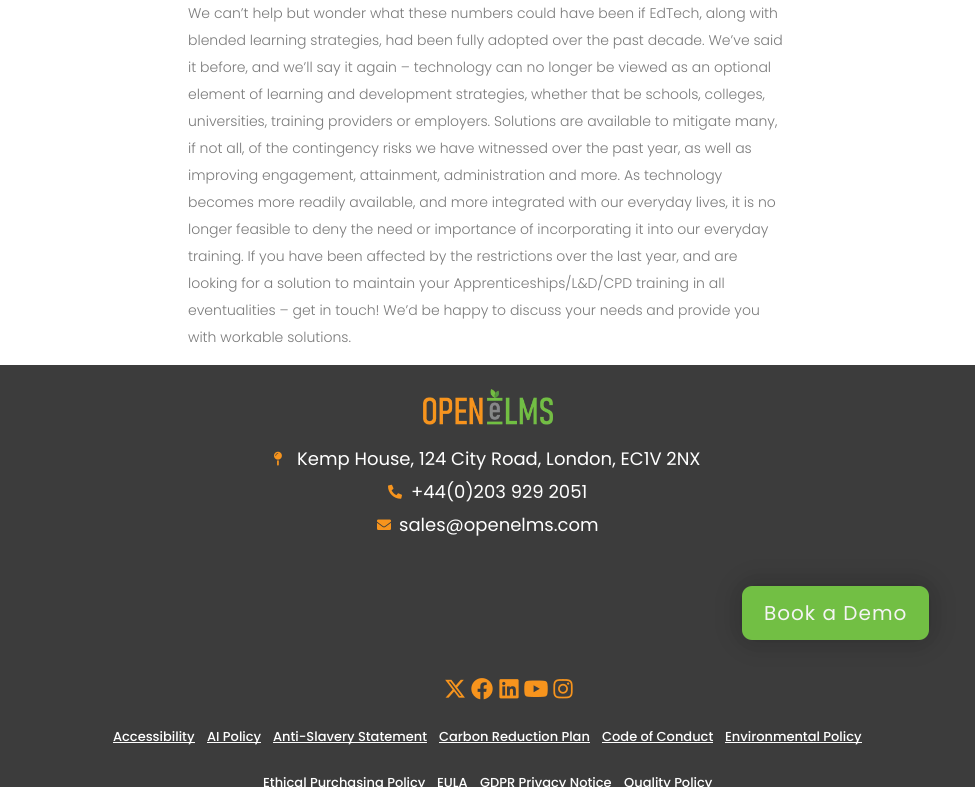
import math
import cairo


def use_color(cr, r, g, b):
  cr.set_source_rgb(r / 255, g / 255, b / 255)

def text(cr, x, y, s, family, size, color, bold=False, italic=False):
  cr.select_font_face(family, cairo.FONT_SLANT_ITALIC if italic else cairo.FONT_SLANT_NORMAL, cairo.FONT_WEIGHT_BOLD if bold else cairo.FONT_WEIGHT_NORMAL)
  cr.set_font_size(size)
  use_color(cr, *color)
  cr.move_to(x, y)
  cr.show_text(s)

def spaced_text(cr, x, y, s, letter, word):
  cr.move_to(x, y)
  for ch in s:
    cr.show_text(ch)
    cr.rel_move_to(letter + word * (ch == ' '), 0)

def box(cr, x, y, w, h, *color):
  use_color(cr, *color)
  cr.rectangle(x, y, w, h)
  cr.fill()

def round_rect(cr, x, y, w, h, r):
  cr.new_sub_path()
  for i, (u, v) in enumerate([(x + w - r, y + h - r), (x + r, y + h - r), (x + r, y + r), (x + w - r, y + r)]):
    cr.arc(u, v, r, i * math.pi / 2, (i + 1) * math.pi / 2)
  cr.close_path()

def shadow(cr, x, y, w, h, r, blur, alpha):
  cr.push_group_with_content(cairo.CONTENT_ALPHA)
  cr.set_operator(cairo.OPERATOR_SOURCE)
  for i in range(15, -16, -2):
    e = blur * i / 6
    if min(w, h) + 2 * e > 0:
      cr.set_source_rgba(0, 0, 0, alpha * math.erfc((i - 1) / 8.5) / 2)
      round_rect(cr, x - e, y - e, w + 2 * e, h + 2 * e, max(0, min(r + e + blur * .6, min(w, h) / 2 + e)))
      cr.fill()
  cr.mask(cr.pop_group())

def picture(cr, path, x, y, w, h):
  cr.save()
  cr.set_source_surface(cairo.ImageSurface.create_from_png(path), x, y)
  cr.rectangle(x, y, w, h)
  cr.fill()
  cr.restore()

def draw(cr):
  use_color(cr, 255, 255, 255)
  cr.paint()
  box(cr, 0, 365, 975, 422, 60, 60, 60)
  picture(cr, "img_01.png", 423, 389, 130, 36)
  picture(cr, "img_02.png", 274, 451, 8, 15)
  picture(cr, "img_03.png", 388, 484, 14, 15)
  picture(cr, "img_04.png", 377, 519, 14, 11)
  use_color(cr, 0, 0, 0)
  shadow(cr, 742, 586, 187, 54, 10, 15, 0.25)
  use_color(cr, 114, 191, 68)
  round_rect(cr, 743, 587, 185, 52, 9)
  cr.fill_preserve()
  cr.stroke()
  picture(cr, "img_05.png", 445, 679, 20, 19)
  picture(cr, "img_06.png", 471, 678, 22, 22)
  picture(cr, "img_07.png", 499, 679, 20, 20)
  picture(cr, "img_08.png", 524, 680, 24, 17)
  picture(cr, "img_09.png", 553, 679, 20, 20)
  box(cr, 113, 742, 82, 1, 255, 255, 255)
  box(cr, 207, 742, 54, 1, 255, 255, 255)
  box(cr, 273, 742, 154, 1, 255, 255, 255)
  box(cr, 439, 742, 151, 1, 255, 255, 255)
  box(cr, 602, 742, 111, 1, 255, 255, 255)
  box(cr, 725, 742, 137, 1, 255, 255, 255)
  text(cr, 188, 18, "We can’t help but wonder what these numbers could have been if EdTech, along with", "Poppins Light", 14, (122, 122, 122))
  text(cr, 188, 45, "blended learning strategies, had been fully adopted over the past decade. We’ve said", "Poppins Light", 14, (122, 122, 122))
  text(cr, 188, 72, "it before, and we’ll say it again – technology can no longer be viewed as an optional", "Poppins Light", 14, (122, 122, 122))
  text(cr, 188, 99, "element of learning and development strategies, whether that be schools, colleges,", "Poppins Light", 14, (122, 122, 122))
  text(cr, 188, 126, "universities, training providers or employers. Solutions are available to mitigate many,", "Poppins Light", 14, (122, 122, 122))
  text(cr, 188, 153, "if not all, of the contingency risks we have witnessed over the past year, as well as", "Poppins Light", 14, (122, 122, 122))
  text(cr, 188, 180, "improving engagement, attainment, administration and more. As technology", "Poppins Light", 14, (122, 122, 122))
  text(cr, 188, 207, "becomes more readily available, and more integrated with our everyday lives, it is no", "Poppins Light", 14, (122, 122, 122))
  text(cr, 188, 234, "longer feasible to deny the need or importance of incorporating it into our everyday", "Poppins Light", 14, (122, 122, 122))
  text(cr, 188, 261, "training. If you have been affected by the restrictions over the last year, and are", "Poppins Light", 14, (122, 122, 122))
  text(cr, 188, 288, "looking for a solution to maintain your Apprenticeships/L&D/CPD training in all", "Poppins Light", 14, (122, 122, 122))
  text(cr, 188, 315, "eventualities – get in touch! We’d be happy to discuss your needs and provide you", "Poppins Light", 14, (122, 122, 122))
  text(cr, 188, 342, "with workable solutions.", "Poppins Light", 14, (122, 122, 122))
  text(cr, 297, 465, "Kemp House, 124 City Road, London, EC1V 2NX", "Poppins", 18, (255, 255, 255))
  text(cr, 411, 498, "+44(0)203 929 2051", "Poppins", 18, (255, 255, 255))
  text(cr, 399, 531, "sales@openelms.com", "Poppins", 18, (255, 255, 255))
  cr.set_font_size(20)
  use_color(cr, 244, 244, 244)
  spaced_text(cr, 764, 620, "Book a Demo", 1, 0)
  text(cr, 113, 741, "Accessibility", "Poppins Medium", 13, (255, 255, 255))
  text(cr, 207, 741, "AI Policy", "Poppins Medium", 13, (255, 255, 255))
  text(cr, 273, 741, "Anti-Slavery Statement", "Poppins Medium", 13, (255, 255, 255))
  text(cr, 439, 741, "Carbon Reduction Plan", "Poppins Medium", 13, (255, 255, 255))
  text(cr, 602, 741, "Code of Conduct", "Poppins Medium", 13, (255, 255, 255))
  text(cr, 725, 741, "Environmental Policy", "Poppins Medium", 13, (255, 255, 255))
  text(cr, 263, 787, "Ethical Purchasing Policy", "Poppins Medium", 13, (255, 255, 255))
  text(cr, 437, 787, "EULA", "Poppins Medium", 13, (255, 255, 255))
  text(cr, 480, 787, "GDPR Privacy Notice", "Poppins Medium", 13, (255, 255, 255))
  text(cr, 624, 787, "Quality Policy", "Poppins Medium", 13, (255, 255, 255))


surface = cairo.ImageSurface(cairo.FORMAT_RGB24, 975, 787)
cr = cairo.Context(surface)
options = cairo.FontOptions()
options.set_hint_metrics(cairo.HINT_METRICS_OFF)
options.set_hint_style(cairo.HINT_STYLE_NONE)
cr.set_font_options(options)
cr.set_miter_limit(4)
draw(cr)
surface.write_to_png("out.png")
